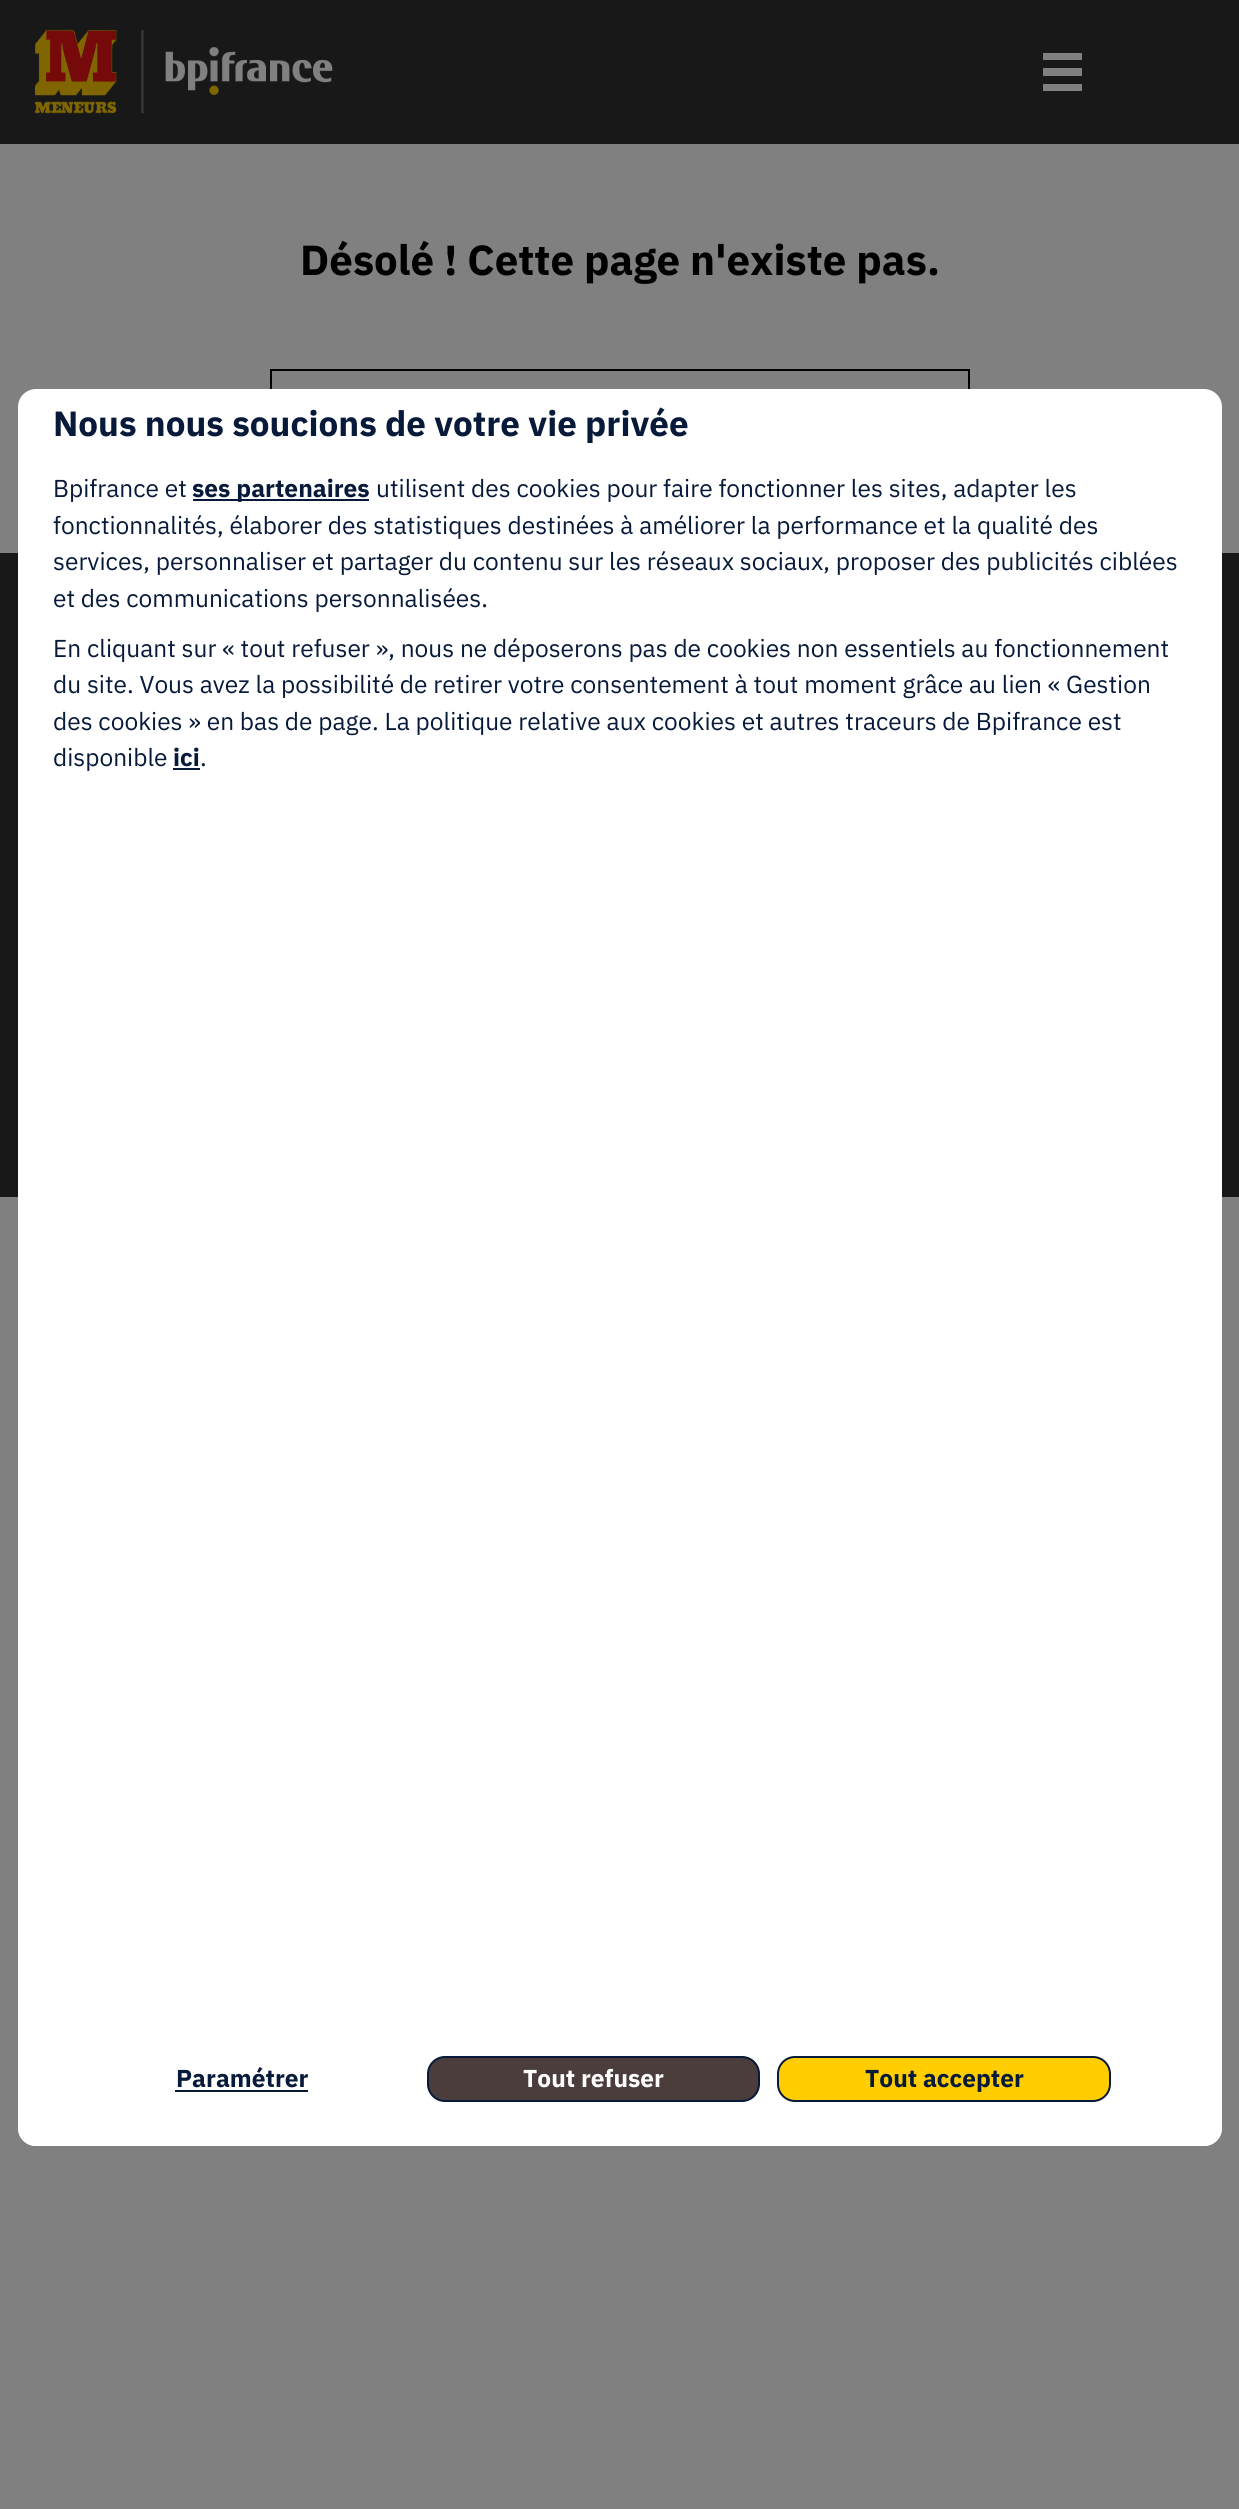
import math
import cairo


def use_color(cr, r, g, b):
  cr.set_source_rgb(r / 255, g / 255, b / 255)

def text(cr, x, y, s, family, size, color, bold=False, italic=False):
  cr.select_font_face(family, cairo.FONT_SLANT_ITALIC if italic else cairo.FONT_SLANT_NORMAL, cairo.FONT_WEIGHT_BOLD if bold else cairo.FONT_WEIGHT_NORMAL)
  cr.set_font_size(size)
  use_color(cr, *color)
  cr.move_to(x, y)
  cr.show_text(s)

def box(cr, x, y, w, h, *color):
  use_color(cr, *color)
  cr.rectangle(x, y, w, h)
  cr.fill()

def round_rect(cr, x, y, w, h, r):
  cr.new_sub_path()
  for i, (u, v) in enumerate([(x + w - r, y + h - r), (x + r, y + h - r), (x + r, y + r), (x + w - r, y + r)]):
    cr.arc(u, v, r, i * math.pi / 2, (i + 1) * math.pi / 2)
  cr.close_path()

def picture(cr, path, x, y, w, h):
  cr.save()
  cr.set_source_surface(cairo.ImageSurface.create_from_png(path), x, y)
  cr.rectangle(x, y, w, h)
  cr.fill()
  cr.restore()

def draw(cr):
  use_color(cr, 128, 128, 128)
  cr.paint()
  box(cr, 0, 0, 1239, 144, 24, 24, 24)
  picture(cr, "img_01.png", 35, 29, 298, 85)
  box(cr, 1043, 53, 39, 7, 128, 128, 128)
  box(cr, 1043, 68, 39, 8, 128, 128, 128)
  box(cr, 1043, 84, 39, 7, 128, 128, 128)
  cr.rectangle(271, 370, 698, 60)
  use_color(cr, 0, 0, 0)
  cr.stroke()
  box(cr, 0, 553, 1239, 644, 24, 24, 24)
  use_color(cr, 255, 255, 255)
  round_rect(cr, 18, 389, 1204, 1757, 18)
  cr.fill()
  box(cr, 193, 499, 176, 2, 7, 26, 57)
  box(cr, 173, 768, 27, 2, 7, 26, 57)
  gradient = cairo.LinearGradient(620, 2146, 620, 2048)
  gradient.add_color_stop_rgba(0.6, 1, 1, 1, 1)
  gradient.add_color_stop_rgba(1, 1, 1, 1, 0)
  cr.set_source(gradient)
  cr.new_path()
  cr.move_to(18, 2048)
  cr.line_to(1222, 2048)
  cr.line_to(1222, 2128)
  cr.curve_to(1222, 2138, 1214, 2146, 1204, 2146)
  cr.line_to(36, 2146)
  cr.curve_to(26, 2146, 18, 2138, 18, 2128)
  cr.close_path()
  cr.fill()
  box(cr, 175, 2090, 133, 2, 7, 26, 57)
  use_color(cr, 75, 61, 60)
  round_rect(cr, 428, 2057, 331, 44, 17)
  cr.fill_preserve()
  use_color(cr, 7, 26, 57)
  cr.stroke()
  use_color(cr, 255, 205, 0)
  round_rect(cr, 778, 2057, 332, 44, 17)
  cr.fill_preserve()
  use_color(cr, 7, 26, 57)
  cr.stroke()
  text(cr, 300, 275, "Désolé ! Cette page n'existe pas.", "IBM Plex Sans", 42, (0, 0, 0), bold=True)
  text(cr, 53, 436, "Nous nous soucions de votre vie privée", "IBM Plex Sans", 35, (7, 26, 57), bold=True)
  text(cr, 53, 497, "Bpifrance et", "IBM Plex Sans", 24.5, (7, 26, 57))
  text(cr, 192, 497, "ses partenaires", "IBM Plex Sans", 24.5, (7, 26, 57), bold=True)
  text(cr, 376, 497, "utilisent des cookies pour faire fonctionner les sites, adapter les", "IBM Plex Sans", 24.5, (7, 26, 57))
  text(cr, 53, 534, "fonctionnalités, élaborer des statistiques destinées à améliorer la performance et la qualité des", "IBM Plex Sans", 24.5, (7, 26, 57))
  text(cr, 53, 570, "services, personnaliser et partager du contenu sur les réseaux sociaux, proposer des publicités ciblées", "IBM Plex Sans", 24.5, (7, 26, 57))
  text(cr, 53, 607, "et des communications personnalisées.", "IBM Plex Sans", 24.5, (7, 26, 57))
  text(cr, 53, 657, "En cliquant sur « tout refuser », nous ne déposerons pas de cookies non essentiels au fonctionnement", "IBM Plex Sans", 24.5, (7, 26, 57))
  text(cr, 53, 693, "du site. Vous avez la possibilité de retirer votre consentement à tout moment grâce au lien « Gestion", "IBM Plex Sans", 24.5, (7, 26, 57))
  text(cr, 53, 730, "des cookies » en bas de page. La politique relative aux cookies et autres traceurs de Bpifrance est", "IBM Plex Sans", 24.5, (7, 26, 57))
  text(cr, 53, 766, "disponible", "IBM Plex Sans", 24.5, (7, 26, 57))
  text(cr, 173, 766, "ici", "IBM Plex Sans", 24.5, (7, 26, 57), bold=True)
  text(cr, 200, 766, ".", "IBM Plex Sans", 24.5, (7, 26, 57))
  text(cr, 176, 2087, "Paramétrer", "IBM Plex Sans", 24.5, (7, 26, 57), bold=True)
  text(cr, 523, 2087, "Tout refuser", "IBM Plex Sans", 24.5, (255, 255, 255), bold=True)
  text(cr, 865, 2087, "Tout accepter", "IBM Plex Sans", 24.5, (7, 26, 57), bold=True)


surface = cairo.ImageSurface(cairo.FORMAT_RGB24, 1239, 2509)
cr = cairo.Context(surface)
options = cairo.FontOptions()
options.set_hint_metrics(cairo.HINT_METRICS_OFF)
options.set_hint_style(cairo.HINT_STYLE_NONE)
cr.set_font_options(options)
cr.set_miter_limit(4)
draw(cr)
surface.write_to_png("out.png")
